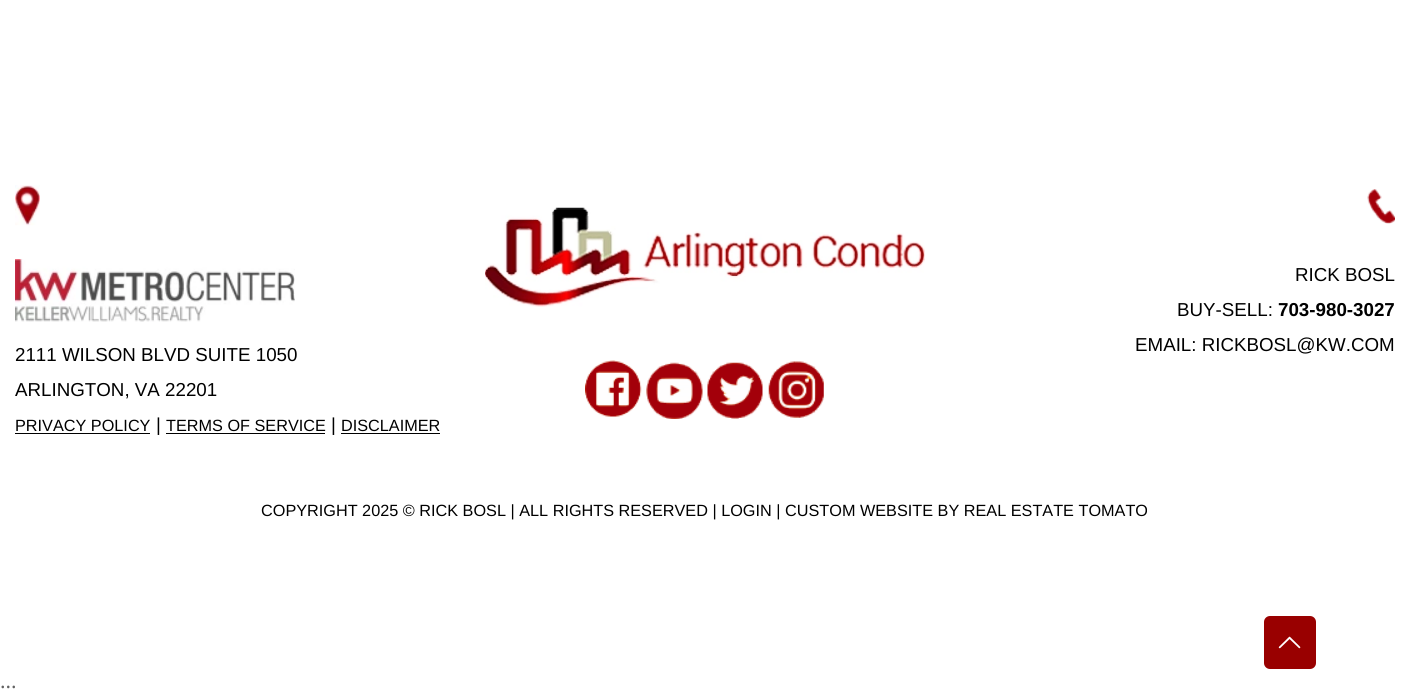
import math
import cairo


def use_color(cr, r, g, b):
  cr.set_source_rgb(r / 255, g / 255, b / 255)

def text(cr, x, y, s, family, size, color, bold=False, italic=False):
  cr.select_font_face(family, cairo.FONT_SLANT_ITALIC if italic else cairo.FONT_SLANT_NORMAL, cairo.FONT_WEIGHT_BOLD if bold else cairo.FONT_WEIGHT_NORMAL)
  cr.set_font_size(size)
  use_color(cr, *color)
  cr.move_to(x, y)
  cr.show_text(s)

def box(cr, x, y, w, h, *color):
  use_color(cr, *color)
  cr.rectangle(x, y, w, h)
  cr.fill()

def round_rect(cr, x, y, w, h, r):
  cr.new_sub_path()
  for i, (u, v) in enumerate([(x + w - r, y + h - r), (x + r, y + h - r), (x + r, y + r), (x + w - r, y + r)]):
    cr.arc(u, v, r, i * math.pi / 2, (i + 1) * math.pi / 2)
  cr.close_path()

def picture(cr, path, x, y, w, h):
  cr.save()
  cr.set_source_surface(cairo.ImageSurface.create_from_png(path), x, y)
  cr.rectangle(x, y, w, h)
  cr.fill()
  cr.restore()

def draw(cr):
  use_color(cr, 255, 255, 255)
  cr.paint()
  picture(cr, "img_01.png", 485, 207, 440, 100)
  picture(cr, "img_02.png", 585, 360, 57, 58)
  picture(cr, "img_03.png", 646, 362, 57, 57)
  picture(cr, "img_04.png", 707, 362, 56, 57)
  picture(cr, "img_05.png", 768, 361, 56, 57)
  picture(cr, "img_06.png", 1367, 189, 28, 35)
  picture(cr, "img_07.png", 15, 185, 25, 41)
  picture(cr, "img_08.png", 15, 259, 280, 63)
  box(cr, 15, 433, 135, 1, 0, 0, 0)
  box(cr, 166, 433, 159, 1, 0, 0, 0)
  box(cr, 341, 433, 99, 1, 0, 0, 0)
  use_color(cr, 153, 0, 0)
  round_rect(cr, 1264, 616, 52, 53, 6)
  cr.fill()
  picture(cr, "img_09.png", 1278, 636, 23, 13)
  text(cr, 1295, 281, "RICK BOSL", "Liberation Sans", 18.75, (0, 0, 0))
  text(cr, 1177, 316, "BUY-SELL:", "Liberation Sans", 18.75, (0, 0, 0))
  text(cr, 1278, 316, "703-980-3027", "Liberation Sans", 18.75, (0, 0, 0), bold=True)
  text(cr, 1135, 351, "EMAIL: RICKBOSL@KW.COM", "Liberation Sans", 18.75, (0, 0, 0))
  text(cr, 15, 361, "2111 WILSON BLVD SUITE 1050", "Liberation Sans", 18.75, (0, 0, 0))
  text(cr, 15, 396, "ARLINGTON, VA 22201", "Liberation Sans", 18.75, (0, 0, 0))
  text(cr, 15, 431, "PRIVACY POLICY", "Liberation Sans", 16.25, (0, 0, 0))
  text(cr, 156, 431, "|", "Liberation Sans", 18.75, (0, 0, 0))
  text(cr, 166, 431, "TERMS OF SERVICE", "Liberation Sans", 16.25, (0, 0, 0))
  text(cr, 331, 431, "|", "Liberation Sans", 18.75, (0, 0, 0))
  text(cr, 341, 431, "DISCLAIMER", "Liberation Sans", 16.25, (0, 0, 0))
  text(cr, 261, 516, "COPYRIGHT 2025 © RICK BOSL | ALL RIGHTS RESERVED | LOGIN | CUSTOM WEBSITE BY REAL ESTATE TOMATO", "Liberation Sans", 16.25, (0, 0, 0))
  text(cr, 0, 688, "...", "Open Sans", 21, (98, 98, 98))


surface = cairo.ImageSurface(cairo.FORMAT_RGB24, 1409, 693)
cr = cairo.Context(surface)
options = cairo.FontOptions()
options.set_hint_metrics(cairo.HINT_METRICS_OFF)
options.set_hint_style(cairo.HINT_STYLE_NONE)
cr.set_font_options(options)
cr.set_miter_limit(4)
draw(cr)
surface.write_to_png("out.png")
